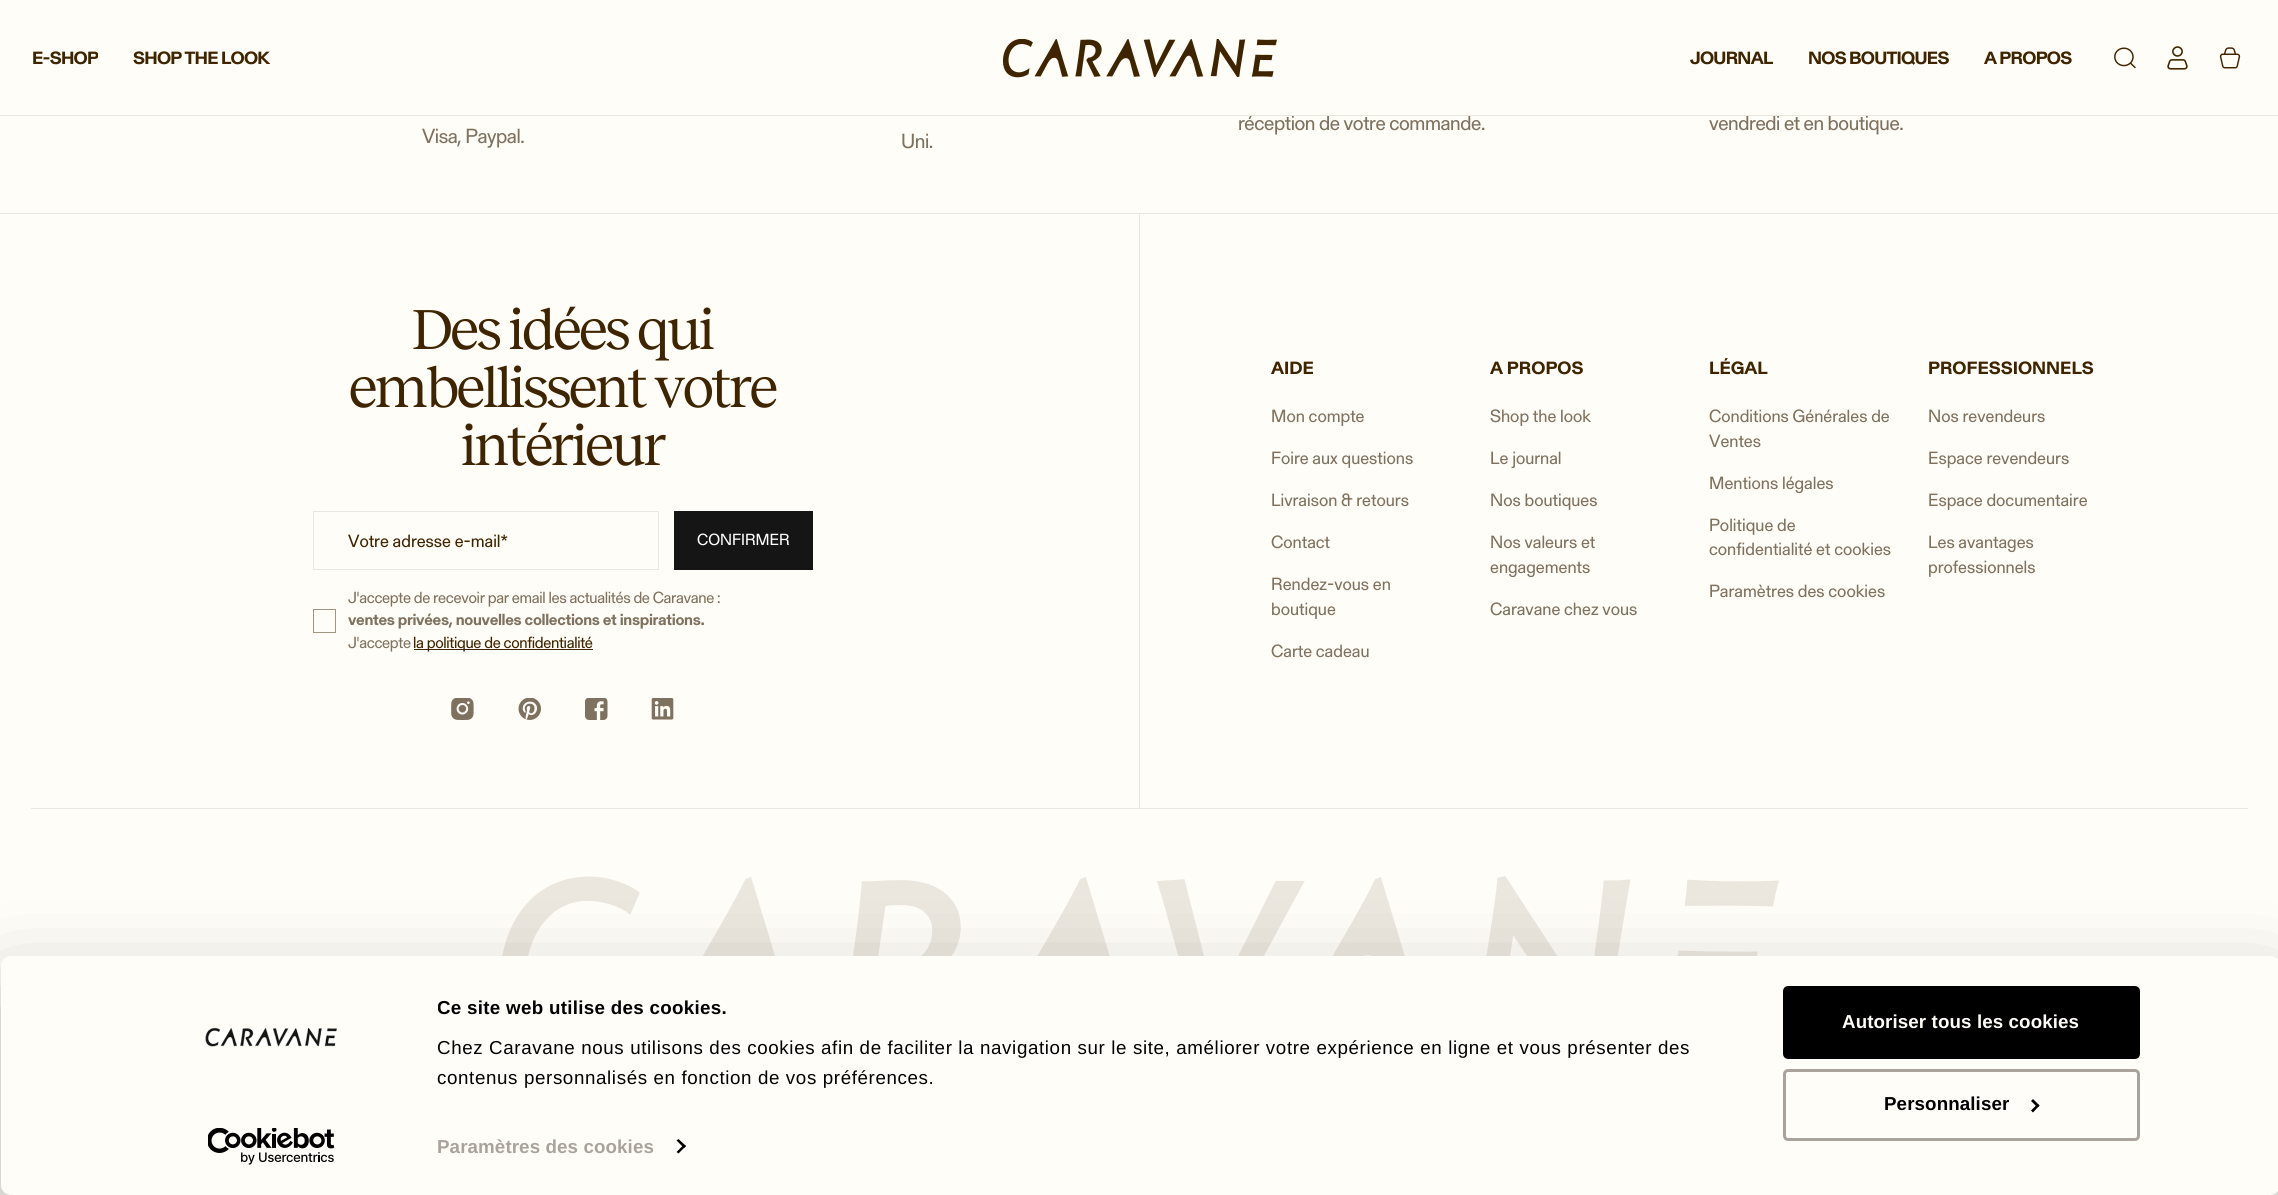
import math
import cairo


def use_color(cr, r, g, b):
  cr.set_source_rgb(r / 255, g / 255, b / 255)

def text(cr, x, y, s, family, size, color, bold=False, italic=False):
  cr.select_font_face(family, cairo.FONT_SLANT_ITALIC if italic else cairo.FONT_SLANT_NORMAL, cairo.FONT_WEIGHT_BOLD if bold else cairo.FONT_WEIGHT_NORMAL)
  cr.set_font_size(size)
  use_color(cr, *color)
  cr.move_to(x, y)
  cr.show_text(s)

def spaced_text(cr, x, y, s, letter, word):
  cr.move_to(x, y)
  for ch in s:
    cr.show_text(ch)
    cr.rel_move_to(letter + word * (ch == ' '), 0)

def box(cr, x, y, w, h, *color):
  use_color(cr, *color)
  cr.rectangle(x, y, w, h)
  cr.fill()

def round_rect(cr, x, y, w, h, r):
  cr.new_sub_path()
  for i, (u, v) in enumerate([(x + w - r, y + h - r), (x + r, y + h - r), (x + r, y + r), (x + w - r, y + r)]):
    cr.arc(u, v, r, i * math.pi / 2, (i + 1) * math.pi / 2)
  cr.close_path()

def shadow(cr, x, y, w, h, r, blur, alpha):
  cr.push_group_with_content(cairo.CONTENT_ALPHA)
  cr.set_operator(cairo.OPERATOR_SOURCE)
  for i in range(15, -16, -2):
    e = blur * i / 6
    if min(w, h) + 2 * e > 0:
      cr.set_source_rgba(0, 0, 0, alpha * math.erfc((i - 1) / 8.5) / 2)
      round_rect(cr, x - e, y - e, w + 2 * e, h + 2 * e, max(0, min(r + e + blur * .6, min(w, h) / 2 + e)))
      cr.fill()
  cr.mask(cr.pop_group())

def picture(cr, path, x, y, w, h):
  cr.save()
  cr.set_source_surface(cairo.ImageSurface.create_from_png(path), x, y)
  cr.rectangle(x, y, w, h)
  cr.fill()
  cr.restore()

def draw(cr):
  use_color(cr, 255, 253, 247)
  cr.paint()
  picture(cr, "img_01.png", 1003, 39, 274, 39)
  picture(cr, "img_02.png", 2114, 47, 22, 22)
  picture(cr, "img_03.png", 2167, 46, 21, 24)
  picture(cr, "img_04.png", 2219, 47, 22, 22)
  box(cr, 0, 213, 2278, 1, 236, 231, 222)
  box(cr, 1139, 214, 1, 594, 236, 231, 222)
  cr.rectangle(313.5, 511.5, 345, 58)
  cr.set_line_width(1)
  cr.stroke()
  box(cr, 674, 511, 139, 59, 21, 21, 21)
  cr.rectangle(313.5, 609.5, 22, 23)
  use_color(cr, 160, 149, 133)
  cr.stroke()
  box(cr, 414, 649, 179, 1, 63, 36, 0)
  picture(cr, "img_05.png", 451, 698, 23, 22)
  picture(cr, "img_06.png", 518, 698, 23, 22)
  picture(cr, "img_07.png", 585, 698, 23, 22)
  picture(cr, "img_08.png", 651, 698, 23, 22)
  box(cr, 31, 808, 2217, 1, 236, 231, 222)
  picture(cr, "img_09.png", 502, 876, 1277, 80)
  use_color(cr, 0, 0, 0)
  shadow(cr, 1, 994, 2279, 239, 10, 44, 0.3)
  use_color(cr, 255, 253, 247)
  round_rect(cr, 1, 956, 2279, 239, 10)
  cr.fill()
  picture(cr, "img_10.png", 205, 1027, 132, 20)
  picture(cr, "img_11.png", 208, 1128, 127, 37)
  use_color(cr, 0, 0, 0)
  cr.new_path()
  cr.move_to(678.5, 1139)
  cr.line_to(686, 1146)
  cr.line_to(684, 1148)
  cr.line_to(676.5, 1140.5)
  cr.close_path()
  cr.fill()
  cr.new_path()
  cr.move_to(684, 1144.5)
  cr.line_to(686, 1146)
  cr.line_to(678.5, 1153.5)
  cr.line_to(676.5, 1152)
  cr.close_path()
  cr.fill()
  round_rect(cr, 1784.5, 987.5, 354, 70, 3.5)
  cr.fill_preserve()
  cr.set_line_width(3)
  cr.stroke()
  round_rect(cr, 1784.5, 1070.5, 354, 69, 3.5)
  use_color(cr, 169, 163, 156)
  cr.stroke()
  use_color(cr, 0, 0, 0)
  cr.new_path()
  cr.move_to(2033, 1099)
  cr.line_to(2039.5, 1105.5)
  cr.line_to(2037.5, 1107.5)
  cr.line_to(2031, 1101)
  cr.close_path()
  cr.fill()
  cr.new_path()
  cr.move_to(2037.5, 1104)
  cr.line_to(2039.5, 1105.5)
  cr.line_to(2033, 1112.5)
  cr.line_to(2031, 1110.5)
  cr.close_path()
  cr.fill()
  cr.save()
  cr.rectangle(31, 48, 67, 21)
  cr.clip()
  cr.select_font_face("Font", cairo.FONT_SLANT_NORMAL, cairo.FONT_WEIGHT_BOLD)
  cr.set_font_size(17.5)
  use_color(cr, 63, 36, 0)
  spaced_text(cr, 32, 64, "E-SHOP", -0.75, 0)
  cr.restore()
  cr.select_font_face("Font", cairo.FONT_SLANT_NORMAL, cairo.FONT_WEIGHT_BOLD)
  cr.set_font_size(17.5)
  use_color(cr, 63, 36, 0)
  spaced_text(cr, 133, 64, "SHOP THE LOOK", -0.75, 0)
  cr.save()
  cr.rectangle(1690, 48, 83, 21)
  cr.clip()
  spaced_text(cr, 1690, 64, "JOURNAL", -0.75, 0)
  cr.restore()
  cr.save()
  cr.rectangle(1808, 48, 141, 21)
  cr.clip()
  spaced_text(cr, 1808, 64, "NOS BOUTIQUES", -0.75, 0)
  cr.restore()
  spaced_text(cr, 1984, 64, "A PROPOS", -0.75, 0)
  cr.select_font_face("Font")
  cr.set_font_size(20.25)
  use_color(cr, 126, 113, 95)
  spaced_text(cr, 1238, 130, "réception de votre commande.", -0.4, 0)
  spaced_text(cr, 1709, 130, "vendredi et en boutique.", -0.4, 0)
  box(cr, 0, 115, 2278, 1, 236, 231, 222)
  use_color(cr, 126, 113, 95)
  spaced_text(cr, 422, 143, "Visa, Paypal.", -0.4, 0)
  spaced_text(cr, 901, 148, "Uni.", -0.4, 0)
  cr.select_font_face("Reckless")
  cr.set_font_size(58.25)
  use_color(cr, 63, 36, 0)
  spaced_text(cr, 412, 349, "Des idées qui", -2.3, 0)
  spaced_text(cr, 349, 407, "embellissent votre", -2.3, 0)
  spaced_text(cr, 461, 465, "intérieur", -2.3, 0)
  text(cr, 348, 547, "Votre adresse e-mail*", "Font", 17.5, (63, 36, 0))
  text(cr, 697, 545, "CONFIRMER", "Font", 15.9, (255, 255, 255))
  use_color(cr, 126, 113, 95)
  spaced_text(cr, 348, 603, "J'accepte de recevoir par email les actualités de Caravane :", -0.32, 0)
  cr.select_font_face("Font", cairo.FONT_SLANT_NORMAL, cairo.FONT_WEIGHT_BOLD)
  spaced_text(cr, 348, 625, "ventes privées, nouvelles collections et inspirations.", -0.32, 0)
  cr.select_font_face("Font")
  spaced_text(cr, 348, 648, "J'accepte", -0.32, 0)
  use_color(cr, 63, 36, 0)
  spaced_text(cr, 413, 648, "la politique de confidentialité", -0.32, 0)
  text(cr, 1271, 374, "AIDE", "Font", 17.5, (63, 36, 0), bold=True)
  text(cr, 1271, 422, "Mon compte", "Font", 17.5, (126, 113, 95))
  text(cr, 1271, 464, "Foire aux questions", "Font", 17.5, (126, 113, 95))
  text(cr, 1271, 506, "Livraison & retours", "Font", 17.5, (126, 113, 95))
  text(cr, 1271, 548, "Contact", "Font", 17.5, (126, 113, 95))
  text(cr, 1271, 590, "Rendez-vous en", "Font", 17.5, (126, 113, 95))
  text(cr, 1271, 615, "boutique", "Font", 17.5, (126, 113, 95))
  text(cr, 1271, 657, "Carte cadeau", "Font", 17.5, (126, 113, 95))
  text(cr, 1490, 374, "A PROPOS", "Font", 17.5, (63, 36, 0), bold=True)
  text(cr, 1490, 422, "Shop the look", "Font", 17.5, (126, 113, 95))
  text(cr, 1490, 464, "Le journal", "Font", 17.5, (126, 113, 95))
  text(cr, 1490, 506, "Nos boutiques", "Font", 17.5, (126, 113, 95))
  text(cr, 1490, 548, "Nos valeurs et", "Font", 17.5, (126, 113, 95))
  text(cr, 1490, 573, "engagements", "Font", 17.5, (126, 113, 95))
  text(cr, 1490, 615, "Caravane chez vous", "Font", 17.5, (126, 113, 95))
  cr.save()
  cr.rectangle(1709, 358, 59, 21)
  cr.clip()
  text(cr, 1709, 374, "LÉGAL", "Font", 17.5, (63, 36, 0), bold=True)
  cr.restore()
  text(cr, 1709, 422, "Conditions Générales de", "Font", 17.5, (126, 113, 95))
  text(cr, 1709, 447, "Ventes", "Font", 17.5, (126, 113, 95))
  text(cr, 1709, 489, "Mentions légales", "Font", 17.5, (126, 113, 95))
  text(cr, 1709, 531, "Politique de", "Font", 17.5, (126, 113, 95))
  text(cr, 1709, 555, "confidentialité et cookies", "Font", 17.5, (126, 113, 95))
  text(cr, 1709, 597, "Paramètres des cookies", "Font", 17.5, (126, 113, 95))
  text(cr, 1928, 374, "PROFESSIONNELS", "Font", 17.5, (63, 36, 0), bold=True)
  text(cr, 1928, 422, "Nos revendeurs", "Font", 17.5, (126, 113, 95))
  text(cr, 1928, 464, "Espace revendeurs", "Font", 17.5, (126, 113, 95))
  text(cr, 1928, 506, "Espace documentaire", "Font", 17.5, (126, 113, 95))
  text(cr, 1928, 548, "Les avantages", "Font", 17.5, (126, 113, 95))
  text(cr, 1928, 573, "professionnels", "Font", 17.5, (126, 113, 95))
  cr.save()
  cr.rectangle(438, 994, 1310, 99)
  cr.clip()
  cr.select_font_face("Liberation Sans", cairo.FONT_SLANT_NORMAL, cairo.FONT_WEIGHT_BOLD)
  cr.set_font_size(18.75)
  use_color(cr, 0, 0, 0)
  spaced_text(cr, 437, 1014, "Ce site web utilise des cookies.", 0.3, 0)
  cr.restore()
  cr.select_font_face("Liberation Sans")
  cr.set_font_size(18.75)
  use_color(cr, 0, 0, 0)
  spaced_text(cr, 437, 1054, "Chez Caravane nous utilisons des cookies afin de faciliter la navigation sur le site, améliorer votre expérience en ligne et vous présenter des", 0.62, 0)
  spaced_text(cr, 437, 1084, "contenus personnalisés en fonction de vos préférences.", 0.62, 0)
  cr.select_font_face("Liberation Sans", cairo.FONT_SLANT_NORMAL, cairo.FONT_WEIGHT_BOLD)
  use_color(cr, 169, 163, 156)
  spaced_text(cr, 437, 1153, "Paramètres des cookies", 0.1, 0)
  use_color(cr, 255, 253, 247)
  spaced_text(cr, 1842, 1028, "Autoriser tous les cookies", 0.1, 0)
  use_color(cr, 0, 0, 0)
  spaced_text(cr, 1884, 1110, "Personnaliser", 0.1, 0)


surface = cairo.ImageSurface(cairo.FORMAT_RGB24, 2278, 1195)
cr = cairo.Context(surface)
options = cairo.FontOptions()
options.set_hint_metrics(cairo.HINT_METRICS_OFF)
options.set_hint_style(cairo.HINT_STYLE_NONE)
cr.set_font_options(options)
cr.set_miter_limit(4)
draw(cr)
surface.write_to_png("out.png")
